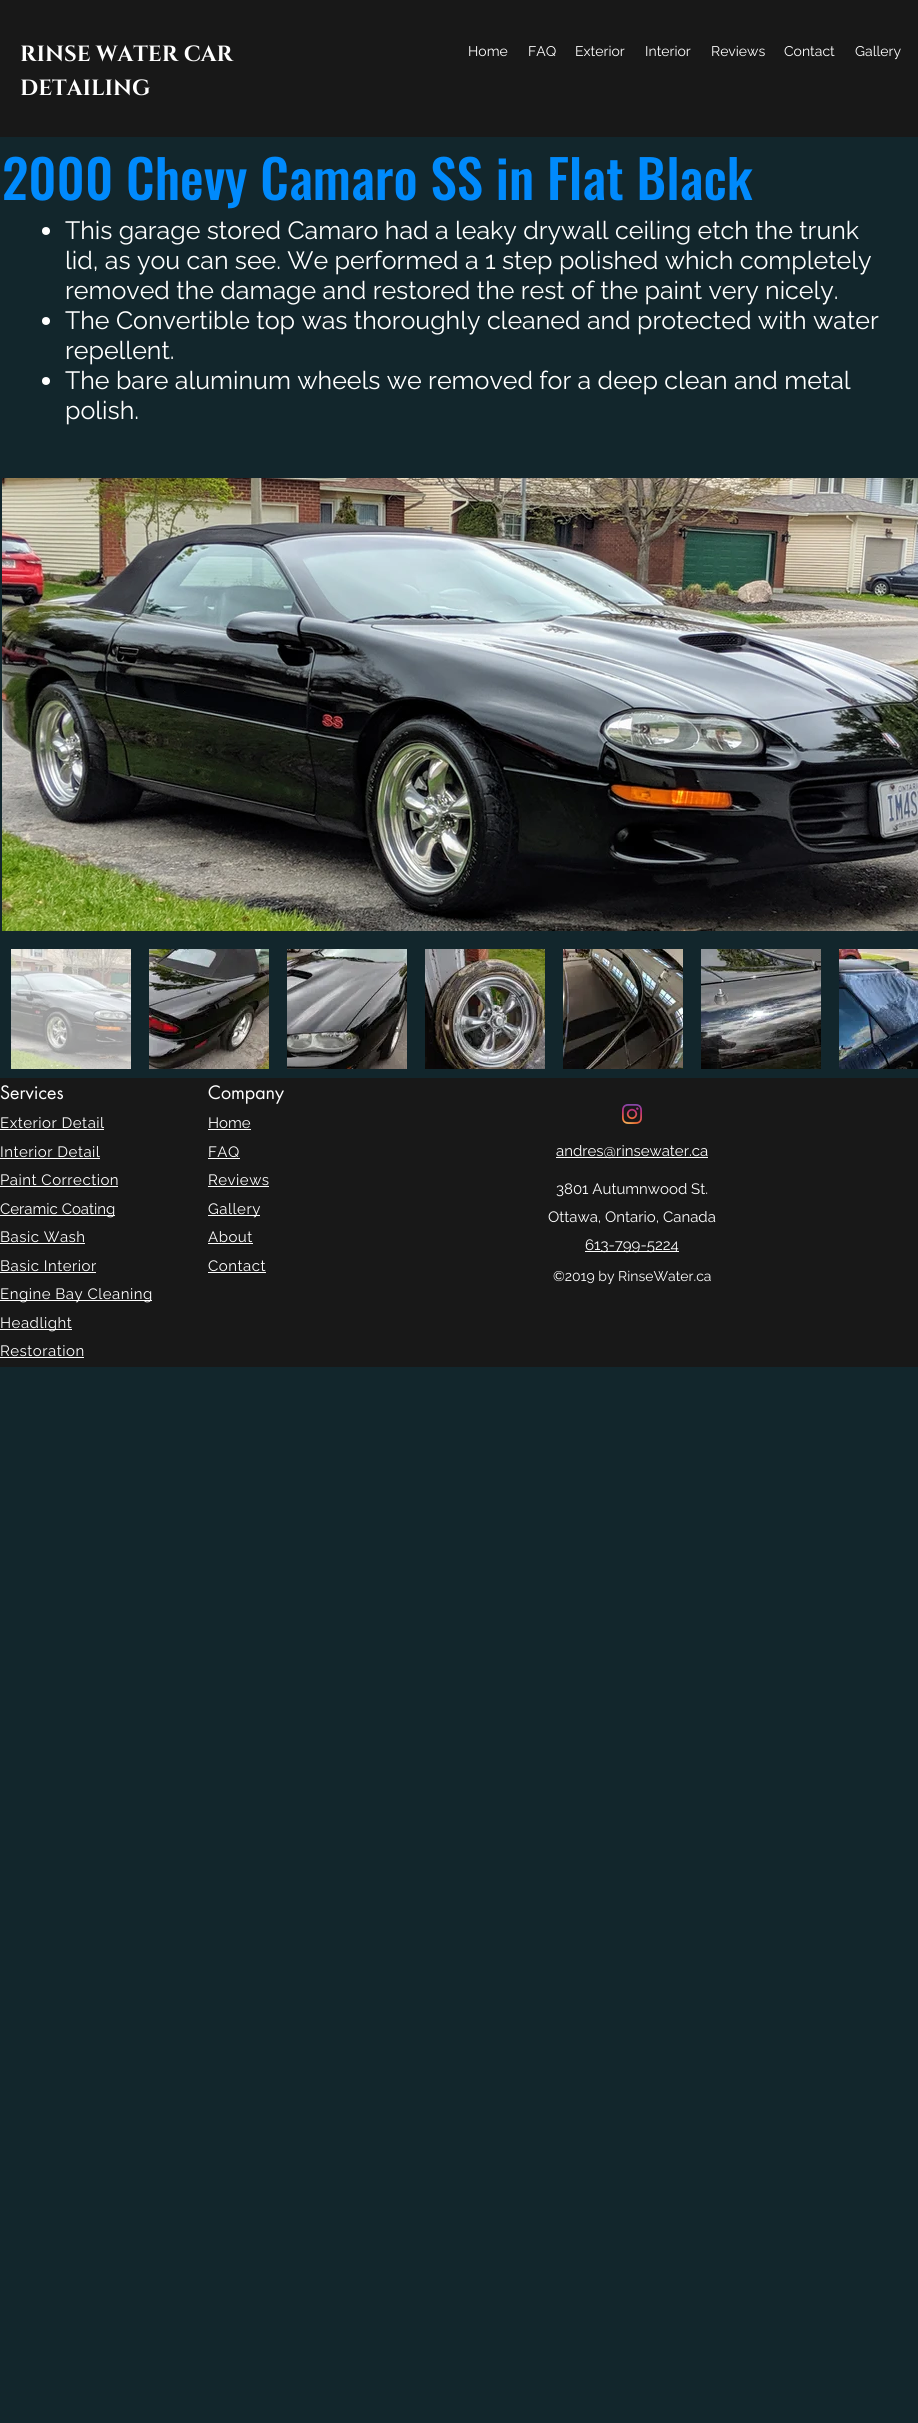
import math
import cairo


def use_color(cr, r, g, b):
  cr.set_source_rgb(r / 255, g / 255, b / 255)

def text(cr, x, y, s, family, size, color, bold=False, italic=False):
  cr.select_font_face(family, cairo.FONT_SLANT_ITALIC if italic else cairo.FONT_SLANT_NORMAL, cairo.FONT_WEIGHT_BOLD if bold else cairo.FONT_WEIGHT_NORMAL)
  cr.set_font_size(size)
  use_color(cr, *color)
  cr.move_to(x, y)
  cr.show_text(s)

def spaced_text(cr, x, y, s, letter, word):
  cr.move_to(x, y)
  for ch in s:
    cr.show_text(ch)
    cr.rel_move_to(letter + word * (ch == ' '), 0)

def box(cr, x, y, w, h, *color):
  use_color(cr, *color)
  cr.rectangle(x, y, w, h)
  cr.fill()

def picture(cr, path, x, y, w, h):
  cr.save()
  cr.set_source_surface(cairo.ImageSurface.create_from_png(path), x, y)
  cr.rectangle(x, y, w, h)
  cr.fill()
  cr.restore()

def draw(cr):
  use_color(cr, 18, 38, 44)
  cr.paint()
  box(cr, 0, 0, 918, 137, 24, 24, 24)
  use_color(cr, 255, 255, 255)
  cr.arc(46, 231, 4, 0, 2 * math.pi)
  cr.fill()
  cr.arc(46, 321, 4, 0, 2 * math.pi)
  cr.fill()
  cr.arc(46, 381, 4, 0, 2 * math.pi)
  cr.fill()
  picture(cr, "img_01.png", 2, 478, 916, 453)
  picture(cr, "img_02.png", 11, 949, 120, 120)
  picture(cr, "img_03.png", 149, 949, 120, 120)
  picture(cr, "img_04.png", 287, 949, 120, 120)
  picture(cr, "img_05.png", 425, 949, 120, 120)
  picture(cr, "img_06.png", 563, 949, 120, 120)
  picture(cr, "img_07.png", 701, 949, 120, 120)
  picture(cr, "img_08.png", 839, 949, 79, 120)
  box(cr, 0, 1078, 918, 289, 24, 24, 24)
  picture(cr, "img_09.png", 622, 1104, 20, 20)
  box(cr, 0, 1129, 104, 1, 255, 255, 255)
  box(cr, 0, 1158, 100, 1, 255, 255, 255)
  box(cr, 0, 1186, 118, 1, 255, 255, 255)
  box(cr, 0, 1215, 115, 1, 255, 255, 255)
  box(cr, 0, 1243, 85, 1, 255, 255, 255)
  box(cr, 0, 1272, 96, 1, 255, 255, 255)
  box(cr, 0, 1300, 152, 1, 255, 255, 255)
  box(cr, 0, 1329, 72, 1, 255, 255, 255)
  box(cr, 0, 1357, 84, 1, 255, 255, 255)
  box(cr, 208, 1129, 43, 1, 255, 255, 255)
  box(cr, 208, 1158, 32, 1, 255, 255, 255)
  box(cr, 208, 1186, 61, 1, 255, 255, 255)
  box(cr, 208, 1215, 52, 1, 255, 255, 255)
  box(cr, 208, 1243, 45, 1, 255, 255, 255)
  box(cr, 208, 1272, 58, 1, 255, 255, 255)
  box(cr, 556, 1157, 152, 1, 255, 255, 255)
  box(cr, 585, 1251, 94, 1, 255, 255, 255)
  text(cr, 20, 61, "RINSE WATER CAR", "Cinzel", 22, (255, 255, 255), bold=True)
  text(cr, 20, 95, "DETAILING", "Cinzel", 22, (255, 255, 255), bold=True)
  text(cr, 468, 56, "Home", "Raleway", 14, (255, 255, 255))
  text(cr, 528, 56, "FAQ", "Raleway", 14, (255, 255, 255))
  text(cr, 575, 56, "Exterior", "Raleway", 14, (255, 255, 255))
  text(cr, 645, 56, "Interior", "Raleway", 14, (255, 255, 255))
  text(cr, 711, 56, "Reviews", "Raleway", 14, (255, 255, 255))
  text(cr, 784, 56, "Contact", "Raleway", 14, (255, 255, 255))
  text(cr, 855, 56, "Gallery", "Raleway", 14, (255, 255, 255))
  text(cr, 2, 200, "2000 Chevy Camaro SS in Flat Black", "Oswald Medium", 53, (0, 138, 252))
  text(cr, 65, 239, "This garage stored Camaro had a leaky drywall ceiling etch the trunk", "Raleway", 25, (255, 255, 255))
  text(cr, 65, 269, "lid, as you can see. We performed a 1 step polished which completely", "Raleway", 25, (255, 255, 255))
  text(cr, 65, 299, "removed the damage and restored the rest of the paint very nicely.", "Raleway", 25, (255, 255, 255))
  text(cr, 65, 329, "The Convertible top was thoroughly cleaned and protected with water", "Raleway", 25, (255, 255, 255))
  text(cr, 65, 359, "repellent.", "Raleway", 25, (255, 255, 255))
  text(cr, 65, 389, "The bare aluminum wheels we removed for a deep clean and metal", "Raleway", 25, (255, 255, 255))
  text(cr, 65, 419, "polish.", "Raleway", 25, (255, 255, 255))
  text(cr, 0, 1099, "Services", "futura", 18, (255, 255, 255))
  text(cr, 208, 1099, "Company", "futura", 18, (255, 255, 255))
  cr.select_font_face("Raleway")
  cr.set_font_size(15)
  spaced_text(cr, 0, 1128, "Exterior Detail", 0.5, 0)
  spaced_text(cr, 0, 1157, "Interior Detail", 0.5, 0)
  spaced_text(cr, 0, 1185, "Paint Correction", 0.5, 0)
  text(cr, 0, 1214, "Ceramic Coating", "Raleway", 15, (255, 255, 255))
  spaced_text(cr, 0, 1242, "Basic Wash", 0.5, 0)
  spaced_text(cr, 0, 1271, "Basic Interior", 0.5, 0)
  spaced_text(cr, 0, 1299, "Engine Bay Cleaning", 0.5, 0)
  spaced_text(cr, 0, 1328, "Headlight", 0.5, 0)
  spaced_text(cr, 0, 1356, "Restoration", 0.5, 0)
  text(cr, 208, 1128, "Home", "Raleway", 15, (255, 255, 255))
  spaced_text(cr, 208, 1157, "FAQ", 0.5, 0)
  spaced_text(cr, 208, 1185, "Reviews", 0.5, 0)
  spaced_text(cr, 208, 1214, "Gallery", 0.5, 0)
  spaced_text(cr, 208, 1242, "About", 0.5, 0)
  spaced_text(cr, 208, 1271, "Contact", 0.5, 0)
  text(cr, 556, 1156, "andres@rinsewater.ca", "Raleway", 15, (255, 255, 255))
  text(cr, 556, 1194, "3801 Autumnwood St.", "Raleway", 15, (255, 255, 255))
  text(cr, 548, 1222, "Ottawa, Ontario, Canada", "Raleway", 15, (255, 255, 255))
  text(cr, 585, 1250, "613-799-5224", "Raleway", 15, (255, 255, 255))
  text(cr, 553, 1281, "©2019 by RinseWater.ca", "Raleway", 14, (255, 255, 255))


surface = cairo.ImageSurface(cairo.FORMAT_RGB24, 918, 2423)
cr = cairo.Context(surface)
options = cairo.FontOptions()
options.set_hint_metrics(cairo.HINT_METRICS_OFF)
options.set_hint_style(cairo.HINT_STYLE_NONE)
cr.set_font_options(options)
cr.set_miter_limit(4)
draw(cr)
surface.write_to_png("out.png")
